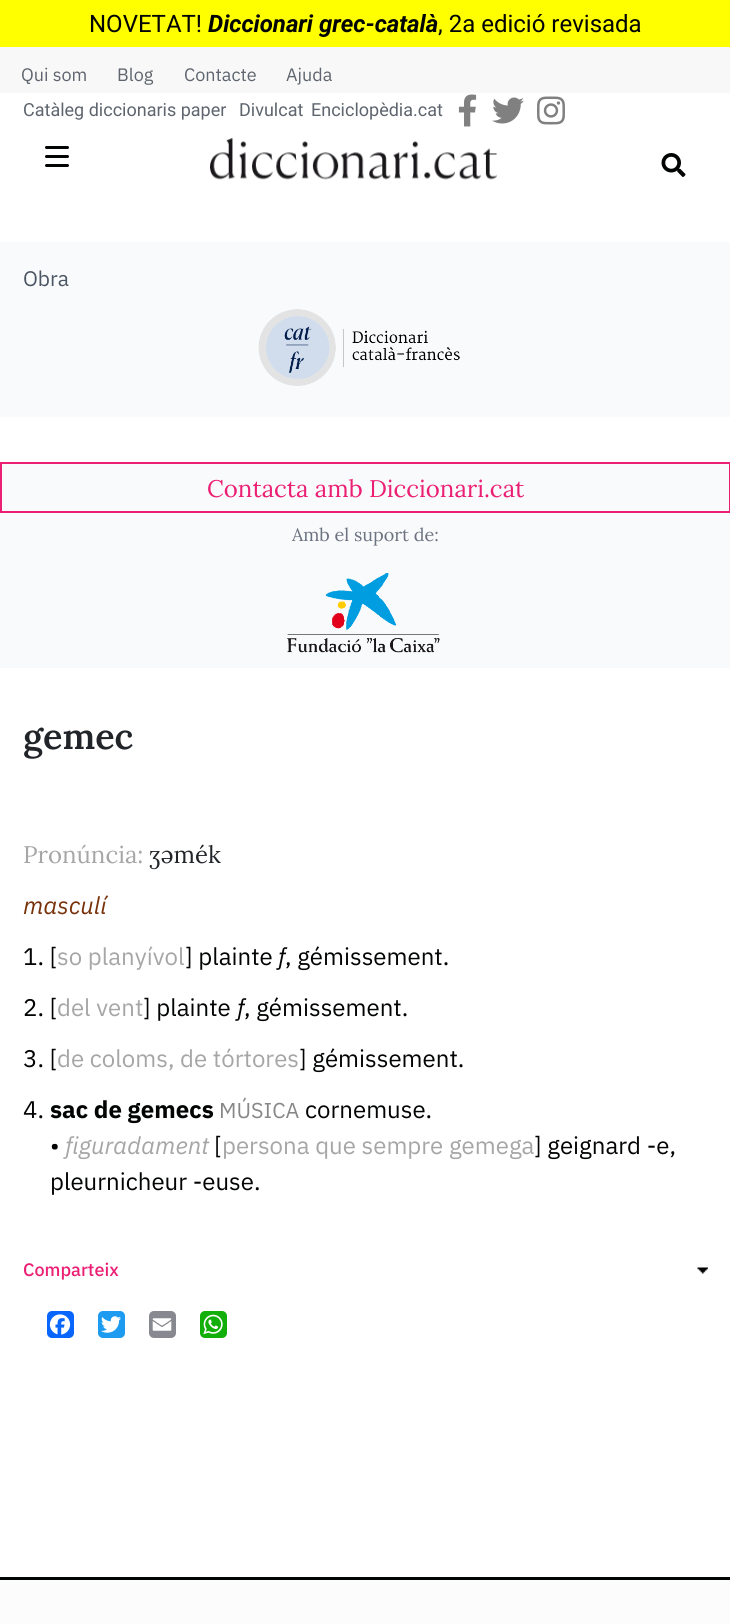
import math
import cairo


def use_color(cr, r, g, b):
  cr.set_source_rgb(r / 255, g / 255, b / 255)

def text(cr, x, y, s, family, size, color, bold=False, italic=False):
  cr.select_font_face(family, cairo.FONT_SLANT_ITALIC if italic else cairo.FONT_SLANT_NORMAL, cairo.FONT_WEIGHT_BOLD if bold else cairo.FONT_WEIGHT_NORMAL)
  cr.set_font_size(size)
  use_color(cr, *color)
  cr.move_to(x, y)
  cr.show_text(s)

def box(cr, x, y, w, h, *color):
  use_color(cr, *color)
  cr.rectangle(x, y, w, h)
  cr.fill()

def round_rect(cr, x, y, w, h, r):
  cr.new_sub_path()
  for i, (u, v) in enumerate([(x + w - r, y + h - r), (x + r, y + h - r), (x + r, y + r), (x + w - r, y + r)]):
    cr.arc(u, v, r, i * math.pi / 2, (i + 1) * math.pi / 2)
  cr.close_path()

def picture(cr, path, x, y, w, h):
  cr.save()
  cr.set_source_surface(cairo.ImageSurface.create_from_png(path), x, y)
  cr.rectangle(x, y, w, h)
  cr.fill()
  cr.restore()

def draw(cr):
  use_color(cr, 255, 255, 255)
  cr.paint()
  box(cr, 0, 0, 730, 47, 255, 255, 0)
  box(cr, 0, 47, 730, 46, 248, 248, 248)
  picture(cr, "img_01.png", 458, 94, 19, 33)
  picture(cr, "img_02.png", 492, 97, 32, 27)
  picture(cr, "img_03.png", 537, 96, 28, 29)
  use_color(cr, 2, 3, 3)
  round_rect(cr, 45, 146, 24, 3, 1.5)
  cr.fill()
  round_rect(cr, 45, 155, 24, 3, 1.5)
  cr.fill()
  round_rect(cr, 45, 164, 24, 3, 1.5)
  cr.fill()
  picture(cr, "img_04.png", 210, 138, 287, 42)
  picture(cr, "img_05.png", 661, 153, 25, 24)
  box(cr, 0, 242, 730, 175, 249, 250, 251)
  picture(cr, "img_06.png", 258, 309, 202, 77)
  cr.rectangle(1, 463, 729, 49)
  cr.fill_preserve()
  use_color(cr, 235, 31, 115)
  cr.stroke()
  box(cr, 0, 513, 730, 155, 249, 250, 251)
  picture(cr, "img_07.png", 287, 573, 153, 80)
  picture(cr, "img_08.png", 697, 1267, 11, 7)
  use_color(cr, 8, 102, 255)
  round_rect(cr, 47, 1311, 27, 27, 5)
  cr.fill()
  picture(cr, "img_09.png", 49, 1314, 22, 21)
  use_color(cr, 29, 155, 240)
  round_rect(cr, 98, 1311, 27, 27, 5)
  cr.fill()
  picture(cr, "img_10.png", 101, 1316, 20, 17)
  use_color(cr, 136, 137, 144)
  round_rect(cr, 149, 1311, 27, 27, 5)
  cr.fill()
  picture(cr, "img_11.png", 152, 1318, 20, 13)
  use_color(cr, 18, 175, 10)
  round_rect(cr, 200, 1311, 27, 27, 5)
  cr.fill()
  picture(cr, "img_12.png", 203, 1314, 20, 21)
  box(cr, 0, 1580, 730, 44, 252, 252, 252)
  box(cr, 0, 1577, 730, 3, 2, 3, 3)
  text(cr, 89, 32, "NOVETAT!", "Roboto", 24, (2, 3, 3))
  text(cr, 208, 32, "Diccionari grec-català", "Roboto", 24, (2, 3, 3), bold=True, italic=True)
  text(cr, 438, 32, ", 2a edició revisada", "Roboto", 24, (2, 3, 3))
  text(cr, 21, 81, "Qui som", "IBM Plex Sans", 18, (94, 101, 110))
  text(cr, 117, 81, "Blog", "IBM Plex Sans", 18, (94, 101, 110))
  text(cr, 184, 81, "Contacte", "IBM Plex Sans", 18, (94, 101, 110))
  text(cr, 286, 81, "Ajuda", "IBM Plex Sans", 18, (94, 101, 110))
  text(cr, 23, 116, "Catàleg diccionaris paper", "Roboto", 18, (94, 101, 110))
  text(cr, 239, 116, "Divulcat", "Roboto", 18, (94, 101, 110))
  text(cr, 311, 116, "Enciclopèdia.cat", "Roboto", 18, (94, 101, 110))
  text(cr, 23, 286, "Obra", "IBM Plex Sans", 21, (75, 85, 99))
  text(cr, 207, 497, "Contacta amb Diccionari.cat", "Lora", 24, (235, 31, 115))
  text(cr, 292, 541, "Amb el suport de:", "Lora", 18, (107, 114, 128))
  text(cr, 23, 749, "gemec", "Lora SemiBold", 36, (33, 37, 41))
  text(cr, 23, 863, "Pronúncia:", "Lora", 24, (166, 166, 166))
  text(cr, 149, 863, "ʒəmék", "Lora", 24, (33, 37, 41))
  text(cr, 23, 914, "masculí", "IBM Plex Sans", 24, (120, 50, 10), italic=True)
  text(cr, 23, 965, "1. [", "IBM Plex Sans", 24, (2, 3, 3))
  text(cr, 57, 965, "so planyívol", "IBM Plex Sans", 24, (166, 166, 166))
  text(cr, 185, 965, "] plainte", "IBM Plex Sans", 24, (2, 3, 3))
  text(cr, 278, 965, "f", "IBM Plex Sans", 24, (2, 3, 3), italic=True)
  text(cr, 285, 965, ", gémissement.", "IBM Plex Sans", 24, (2, 3, 3))
  text(cr, 23, 1016, "2. [", "IBM Plex Sans", 24, (2, 3, 3))
  text(cr, 57, 1016, "del vent", "IBM Plex Sans", 24, (166, 166, 166))
  text(cr, 143, 1016, "] plainte", "IBM Plex Sans", 24, (2, 3, 3))
  text(cr, 237, 1016, "f", "IBM Plex Sans", 24, (2, 3, 3), italic=True)
  text(cr, 244, 1016, ", gémissement.", "IBM Plex Sans", 24, (2, 3, 3))
  text(cr, 23, 1067, "3. [", "IBM Plex Sans", 24, (2, 3, 3))
  text(cr, 57, 1067, "de coloms, de tórtores", "IBM Plex Sans", 24, (166, 166, 166))
  text(cr, 299, 1067, "] gémissement.", "IBM Plex Sans", 24, (2, 3, 3))
  text(cr, 23, 1118, "4.", "IBM Plex Sans", 24, (2, 3, 3))
  text(cr, 50, 1118, "sac de gemecs", "IBM Plex Sans", 24, (2, 3, 3), bold=True)
  text(cr, 219, 1118, "MÚSICA", "IBM Plex Sans", 21.5, (135, 135, 135))
  text(cr, 305, 1118, "cornemuse.", "IBM Plex Sans", 24, (2, 3, 3))
  text(cr, 50, 1154, "•", "IBM Plex Sans", 24, (2, 3, 3))
  text(cr, 65, 1154, "figuradament", "IBM Plex Sans", 24, (166, 166, 166), italic=True)
  text(cr, 214, 1154, "[", "IBM Plex Sans", 24, (2, 3, 3))
  text(cr, 222, 1154, "persona que sempre gemega", "IBM Plex Sans", 24, (166, 166, 166))
  text(cr, 534, 1154, "] geignard -e,", "IBM Plex Sans", 24, (2, 3, 3))
  text(cr, 50, 1190, "pleurnicheur -euse.", "IBM Plex Sans", 24, (2, 3, 3))
  text(cr, 23, 1276, "Comparteix", "IBM Plex Sans Medium", 18, (235, 31, 115))


surface = cairo.ImageSurface(cairo.FORMAT_RGB24, 730, 1624)
cr = cairo.Context(surface)
options = cairo.FontOptions()
options.set_hint_metrics(cairo.HINT_METRICS_OFF)
options.set_hint_style(cairo.HINT_STYLE_NONE)
cr.set_font_options(options)
cr.set_miter_limit(4)
draw(cr)
surface.write_to_png("out.png")
